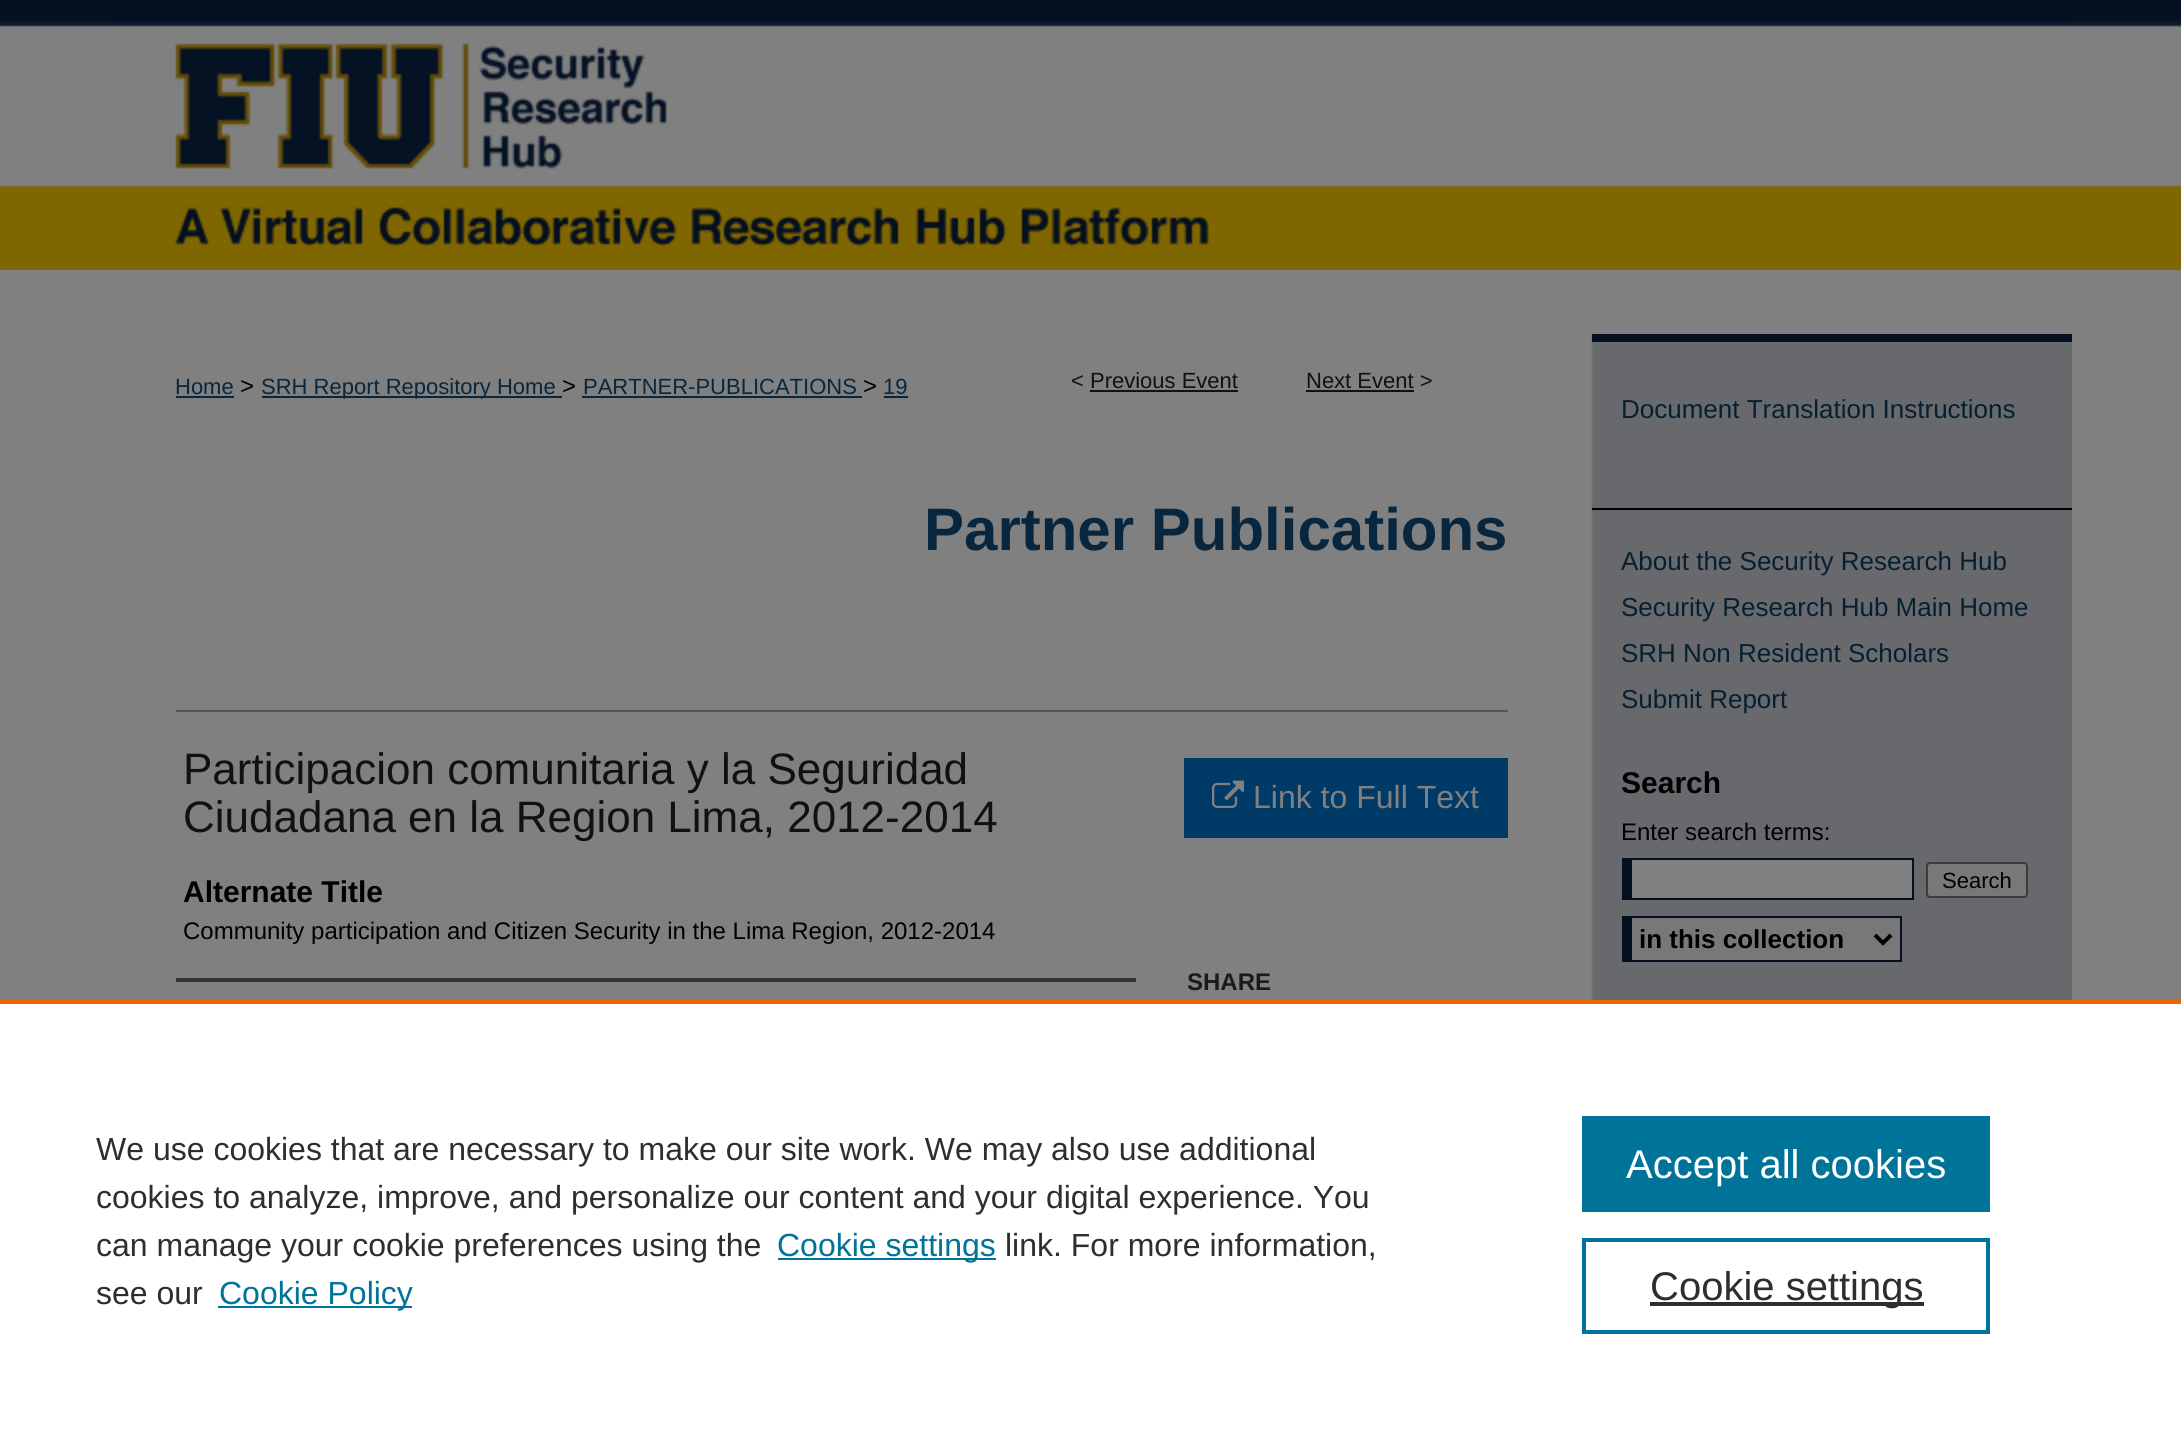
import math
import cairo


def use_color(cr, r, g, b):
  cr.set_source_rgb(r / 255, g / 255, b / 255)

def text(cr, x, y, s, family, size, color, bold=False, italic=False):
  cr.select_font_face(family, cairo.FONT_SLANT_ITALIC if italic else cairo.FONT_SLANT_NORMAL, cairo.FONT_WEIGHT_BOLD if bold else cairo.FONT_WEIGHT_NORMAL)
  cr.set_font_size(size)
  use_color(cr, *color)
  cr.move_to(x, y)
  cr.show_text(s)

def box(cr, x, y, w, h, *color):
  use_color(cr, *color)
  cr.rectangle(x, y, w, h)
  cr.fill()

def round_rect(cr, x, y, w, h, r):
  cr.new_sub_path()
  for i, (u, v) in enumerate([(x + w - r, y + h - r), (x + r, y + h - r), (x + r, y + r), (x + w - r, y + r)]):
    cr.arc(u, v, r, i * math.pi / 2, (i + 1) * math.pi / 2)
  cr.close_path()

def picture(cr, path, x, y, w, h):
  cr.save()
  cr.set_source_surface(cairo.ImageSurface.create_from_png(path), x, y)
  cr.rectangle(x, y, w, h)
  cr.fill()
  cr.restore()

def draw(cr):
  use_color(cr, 128, 128, 128)
  cr.paint()
  picture(cr, "img_01.png", 0, 0, 2181, 270)
  picture(cr, "img_02.png", 112, 0, 1960, 270)
  picture(cr, "img_03.png", 1591, 334, 481, 666)
  box(cr, 176, 396, 58, 2, 8, 39, 62)
  box(cr, 262, 396, 300, 2, 8, 39, 62)
  box(cr, 582, 396, 280, 2, 8, 39, 62)
  box(cr, 884, 396, 24, 2, 8, 39, 62)
  box(cr, 1090, 390, 148, 2, 17, 17, 17)
  box(cr, 1306, 390, 108, 2, 17, 17, 17)
  box(cr, 176, 710, 1332, 2, 85, 85, 85)
  box(cr, 176, 978, 960, 4, 51, 51, 51)
  box(cr, 1184, 758, 324, 80, 0, 58, 102)
  picture(cr, "img_04.png", 1212, 780, 32, 28)
  box(cr, 1592, 334, 480, 8, 4, 15, 32)
  box(cr, 1592, 508, 480, 2, 0, 0, 0)
  box(cr, 1632, 860, 280, 38, 128, 128, 128)
  box(cr, 1632, 858, 282, 2, 4, 15, 32)
  box(cr, 1912, 858, 2, 42, 4, 15, 32)
  box(cr, 1632, 898, 282, 2, 4, 15, 32)
  box(cr, 1622, 858, 10, 42, 4, 15, 32)
  use_color(cr, 120, 120, 120)
  round_rect(cr, 1927, 863, 100, 34, 3)
  cr.fill_preserve()
  use_color(cr, 59, 59, 59)
  cr.stroke()
  box(cr, 1632, 918, 268, 42, 120, 120, 120)
  box(cr, 1632, 916, 270, 2, 4, 15, 32)
  box(cr, 1900, 916, 2, 46, 4, 15, 32)
  box(cr, 1632, 960, 270, 2, 4, 15, 32)
  box(cr, 1622, 916, 10, 46, 4, 15, 32)
  cr.new_path()
  cr.move_to(1875, 935)
  cr.line_to(1883, 943)
  cr.line_to(1891, 935)
  use_color(cr, 0, 0, 0)
  cr.set_line_width(4)
  cr.stroke()
  box(cr, 0, 1004, 2181, 435, 255, 255, 255)
  box(cr, 0, 1000, 2181, 4, 235, 101, 0)
  box(cr, 778, 1258, 218, 2, 0, 115, 152)
  box(cr, 218, 1306, 194, 2, 0, 115, 152)
  box(cr, 1582, 1116, 408, 96, 0, 115, 152)
  cr.rectangle(1584, 1240, 404, 92)
  cr.stroke()
  box(cr, 1650, 1302, 274, 4, 46, 46, 46)
  text(cr, 175, 394, "Home", "Liberation Sans", 22, (8, 39, 62))
  text(cr, 240, 394, ">", "Liberation Sans", 24, (0, 0, 0))
  text(cr, 261, 394, "SRH Report Repository Home", "Liberation Sans", 22, (8, 39, 62))
  text(cr, 562, 394, ">", "Liberation Sans", 24, (0, 0, 0))
  text(cr, 583, 394, "PARTNER-PUBLICATIONS", "Liberation Sans", 22, (8, 39, 62))
  text(cr, 863, 394, ">", "Liberation Sans", 24, (0, 0, 0))
  text(cr, 883, 394, "19", "Liberation Sans", 22, (8, 39, 62))
  text(cr, 1071, 388, "< Previous Event", "Liberation Sans", 22, (17, 17, 17))
  text(cr, 1306, 388, "Next Event >", "Liberation Sans", 22, (17, 17, 17))
  text(cr, 924, 550, "Partner Publications", "Liberation Sans", 60, (8, 39, 62), bold=True)
  text(cr, 183, 784, "Participacion comunitaria y la Seguridad", "Liberation Sans", 44, (17, 17, 17))
  text(cr, 183, 832, "Ciudadana en la Region Lima, 2012-2014", "Liberation Sans", 44, (17, 17, 17))
  text(cr, 183, 902, "Alternate Title", "Liberation Sans", 30, (0, 0, 0), bold=True)
  text(cr, 183, 939, "Community participation and Citizen Security in the Lima Region, 2012-2014", "Liberation Sans", 24, (0, 0, 0))
  text(cr, 1253, 808, "Link to Full Text", "Liberation Sans", 32, (128, 128, 128))
  text(cr, 1187, 990, "SHARE", "Liberation Sans", 24, (26, 26, 26), bold=True)
  text(cr, 1621, 418, "Document Translation Instructions", "Liberation Sans", 26, (7, 32, 49))
  text(cr, 1621, 570, "About the Security Research Hub", "Liberation Sans", 26, (7, 32, 49))
  text(cr, 1621, 616, "Security Research Hub Main Home", "Liberation Sans", 26, (7, 32, 49))
  text(cr, 1621, 662, "SRH Non Resident Scholars", "Liberation Sans", 26, (7, 32, 49))
  text(cr, 1621, 708, "Submit Report", "Liberation Sans", 26, (7, 32, 49))
  text(cr, 1621, 793, "Search", "Liberation Sans", 30, (0, 0, 0), bold=True)
  text(cr, 1621, 840, "Enter search terms:", "Liberation Sans", 24, (0, 0, 0))
  text(cr, 1942, 888, "Search", "Liberation Sans", 22, (0, 0, 0))
  text(cr, 1639, 948, "in this collection", "Liberation Sans", 26, (0, 0, 0), bold=True)
  text(cr, 96, 1160, "We use cookies that are necessary to make our site work. We may also use additional", "Liberation Sans", 32, (46, 46, 46))
  text(cr, 96, 1208, "cookies to analyze, improve, and personalize our content and your digital experience. You", "Liberation Sans", 32, (46, 46, 46))
  text(cr, 96, 1256, "can manage your cookie preferences using the", "Liberation Sans", 32, (46, 46, 46))
  text(cr, 777, 1256, "Cookie settings", "Liberation Sans", 32, (0, 115, 152))
  text(cr, 1005, 1256, "link. For more information,", "Liberation Sans", 32, (46, 46, 46))
  text(cr, 96, 1304, "see our", "Liberation Sans", 32, (46, 46, 46))
  text(cr, 219, 1304, "Cookie Policy", "Liberation Sans", 32, (0, 115, 152))
  text(cr, 1626, 1178, "Accept all cookies", "Liberation Sans", 40, (255, 255, 255))
  text(cr, 1650, 1300, "Cookie settings", "Liberation Sans", 40, (46, 46, 46))


surface = cairo.ImageSurface(cairo.FORMAT_RGB24, 2181, 1439)
cr = cairo.Context(surface)
options = cairo.FontOptions()
options.set_hint_metrics(cairo.HINT_METRICS_OFF)
options.set_hint_style(cairo.HINT_STYLE_NONE)
cr.set_font_options(options)
cr.set_miter_limit(4)
draw(cr)
surface.write_to_png("out.png")
